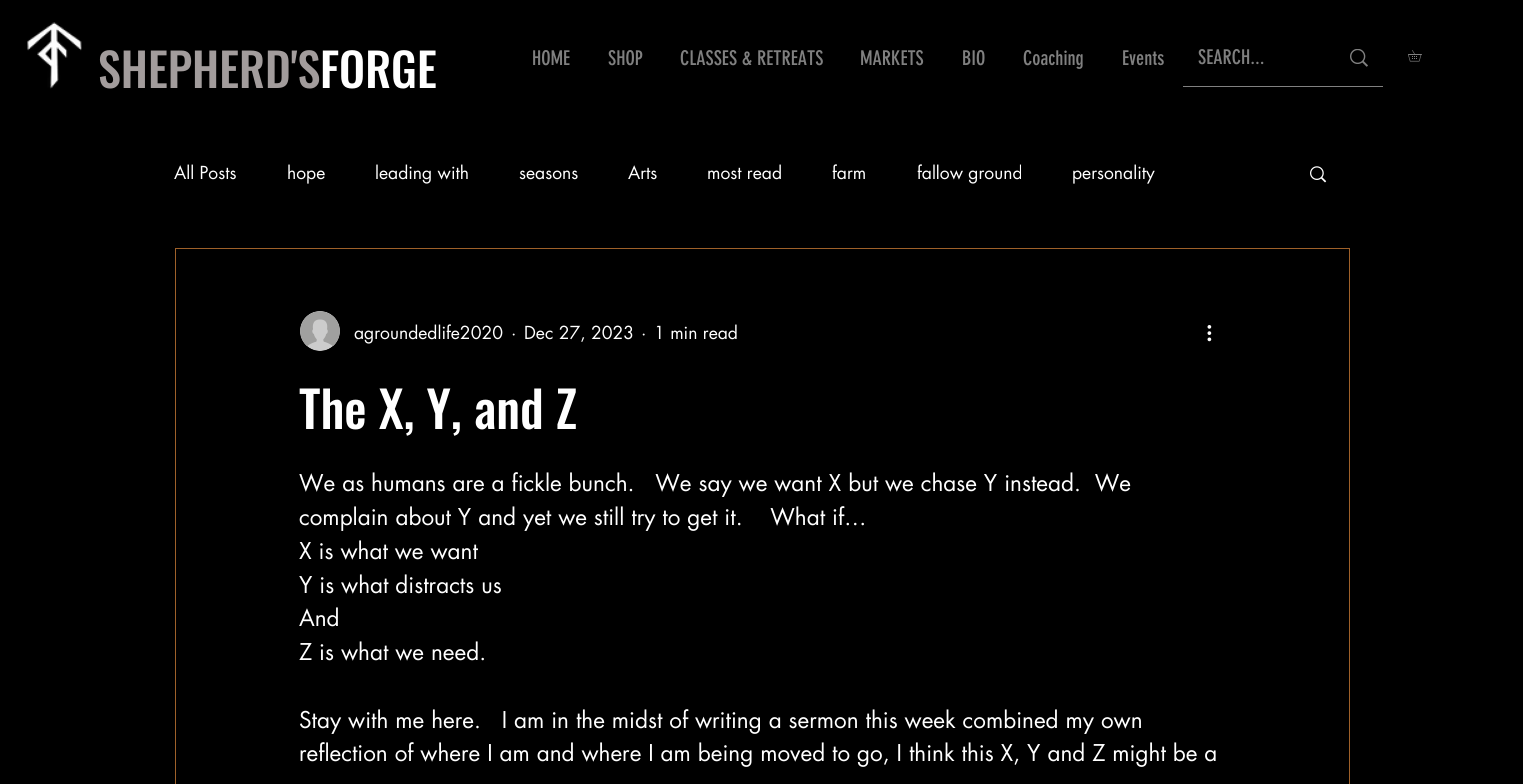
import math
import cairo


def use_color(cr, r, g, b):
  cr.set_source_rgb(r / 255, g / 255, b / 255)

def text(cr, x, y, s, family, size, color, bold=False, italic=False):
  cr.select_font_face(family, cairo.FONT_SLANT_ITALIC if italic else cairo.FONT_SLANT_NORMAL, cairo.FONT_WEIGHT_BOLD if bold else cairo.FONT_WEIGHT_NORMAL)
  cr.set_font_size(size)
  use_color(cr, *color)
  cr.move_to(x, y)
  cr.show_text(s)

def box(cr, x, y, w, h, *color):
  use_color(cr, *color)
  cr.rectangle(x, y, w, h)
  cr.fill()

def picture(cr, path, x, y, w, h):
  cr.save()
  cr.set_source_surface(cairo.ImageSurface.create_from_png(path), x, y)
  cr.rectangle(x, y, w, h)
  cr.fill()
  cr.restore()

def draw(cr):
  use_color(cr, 0, 0, 0)
  cr.paint()
  picture(cr, "img_01.png", 27, 22, 55, 67)
  box(cr, 1183, 86, 200, 1, 128, 128, 128)
  picture(cr, "img_02.png", 1350, 49, 18, 18)
  picture(cr, "img_03.png", 1408, 50, 14, 12)
  picture(cr, "img_04.png", 1310, 166, 17, 17)
  cr.rectangle(175.5, 248.5, 1174, 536)
  use_color(cr, 158, 96, 41)
  cr.set_line_width(1)
  cr.stroke()
  picture(cr, "img_05.png", 300, 311, 40, 40)
  picture(cr, "img_06.png", 1207, 325, 5, 17)
  text(cr, 98, 88, "SHEPHERD'S", "Oswald Medium", 46.25, (162, 156, 156))
  text(cr, 320, 88, "FORGE", "Oswald Medium", 46.25, (255, 255, 255))
  text(cr, 532, 65, "HOME", "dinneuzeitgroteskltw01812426", 20, (128, 128, 128))
  text(cr, 608, 65, "SHOP", "dinneuzeitgroteskltw01812426", 20, (128, 128, 128))
  text(cr, 680, 65, "CLASSES & RETREATS", "dinneuzeitgroteskltw01812426", 20, (128, 128, 128))
  text(cr, 860, 65, "MARKETS", "dinneuzeitgroteskltw01812426", 20, (128, 128, 128))
  text(cr, 962, 65, "BIO", "dinneuzeitgroteskltw01812426", 20, (128, 128, 128))
  text(cr, 1023, 65, "Coaching", "dinneuzeitgroteskltw01812426", 20, (128, 128, 128))
  text(cr, 1122, 65, "Events", "dinneuzeitgroteskltw01812426", 20, (128, 128, 128))
  text(cr, 1198, 64, "SEARCH...", "dinneuzeitgroteskltw01812426", 20, (128, 128, 128))
  text(cr, 174, 179, "All Posts", "futura", 17.5, (255, 255, 255))
  text(cr, 287, 179, "hope", "futura", 17.5, (255, 255, 255))
  text(cr, 375, 179, "leading with", "futura", 17.5, (255, 255, 255))
  text(cr, 519, 179, "seasons", "futura", 17.5, (255, 255, 255))
  text(cr, 628, 179, "Arts", "futura", 17.5, (255, 255, 255))
  text(cr, 707, 179, "most read", "futura", 17.5, (255, 255, 255))
  text(cr, 832, 179, "farm", "futura", 17.5, (255, 255, 255))
  text(cr, 917, 179, "fallow ground", "futura", 17.5, (255, 255, 255))
  text(cr, 1072, 179, "personality", "futura", 17.5, (255, 255, 255))
  text(cr, 354, 339, "agroundedlife2020", "futura", 17.5, (255, 255, 255))
  text(cr, 511, 339, "·", "futura", 17.5, (255, 255, 255))
  text(cr, 524, 339, "Dec 27, 2023", "futura", 17.5, (255, 255, 255))
  text(cr, 641, 339, "·", "futura", 17.5, (255, 255, 255))
  text(cr, 654, 339, "1 min read", "futura", 17.5, (255, 255, 255))
  text(cr, 299, 429, "The X, Y, and Z", "Oswald Medium", 50, (255, 255, 255))
  text(cr, 299, 491, "We as humans are a fickle bunch.   We say we want X but we chase Y instead.  We", "futura", 22.5, (255, 255, 255))
  text(cr, 299, 525, "complain about Y and yet we still try to get it.    What if…", "futura", 22.5, (255, 255, 255))
  text(cr, 299, 559, "X is what we want", "futura", 22.5, (255, 255, 255))
  text(cr, 299, 593, "Y is what distracts us", "futura", 22.5, (255, 255, 255))
  text(cr, 299, 626, "And", "futura", 22.5, (255, 255, 255))
  text(cr, 299, 660, "Z is what we need.", "futura", 22.5, (255, 255, 255))
  text(cr, 299, 728, "Stay with me here.   I am in the midst of writing a sermon this week combined my own", "futura", 22.5, (255, 255, 255))
  text(cr, 299, 761, "reflection of where I am and where I am being moved to go, I think this X, Y and Z might be a", "futura", 22.5, (255, 255, 255))


surface = cairo.ImageSurface(cairo.FORMAT_RGB24, 1523, 784)
cr = cairo.Context(surface)
options = cairo.FontOptions()
options.set_hint_metrics(cairo.HINT_METRICS_OFF)
options.set_hint_style(cairo.HINT_STYLE_NONE)
cr.set_font_options(options)
cr.set_miter_limit(4)
draw(cr)
surface.write_to_png("out.png")
